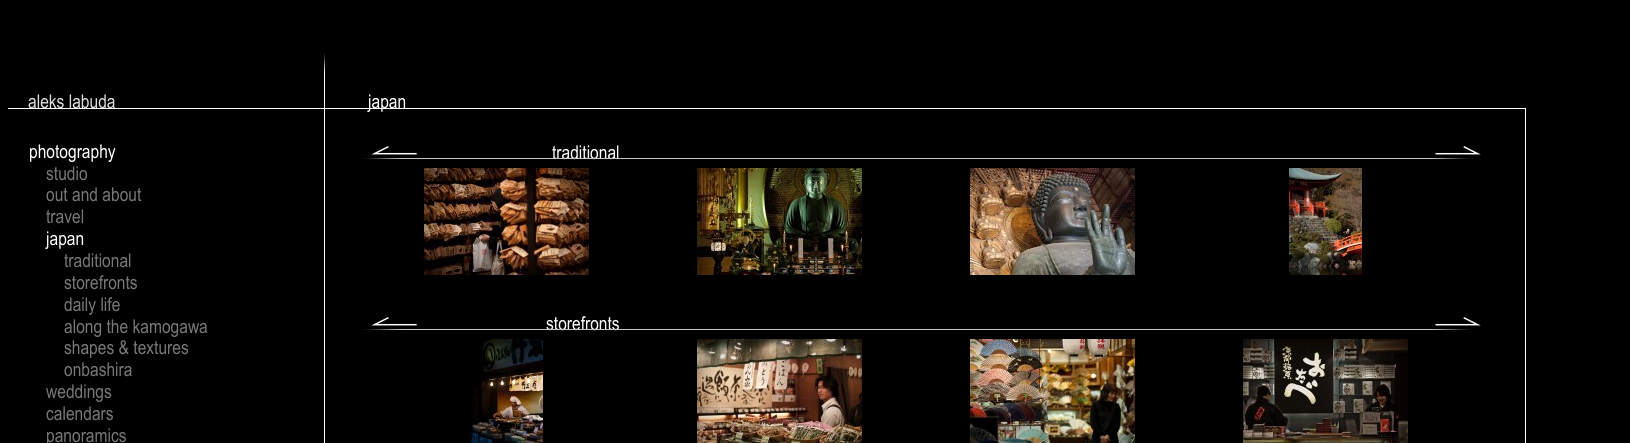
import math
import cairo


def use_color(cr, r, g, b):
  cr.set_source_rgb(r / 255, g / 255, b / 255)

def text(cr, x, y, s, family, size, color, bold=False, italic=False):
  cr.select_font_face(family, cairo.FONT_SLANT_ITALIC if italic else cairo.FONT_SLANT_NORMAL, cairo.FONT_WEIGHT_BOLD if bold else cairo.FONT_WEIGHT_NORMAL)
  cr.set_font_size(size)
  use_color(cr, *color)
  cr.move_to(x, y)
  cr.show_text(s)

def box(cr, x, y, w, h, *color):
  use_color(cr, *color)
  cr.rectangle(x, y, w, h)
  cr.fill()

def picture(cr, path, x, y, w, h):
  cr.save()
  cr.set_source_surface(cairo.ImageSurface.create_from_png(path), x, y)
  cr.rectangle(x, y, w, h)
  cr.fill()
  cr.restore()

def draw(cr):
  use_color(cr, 0, 0, 0)
  cr.paint()
  picture(cr, "img_01.png", 324, 52, 1, 56)
  box(cr, 8, 108, 316, 1, 255, 255, 255)
  cr.rectangle(324.5, 108.5, 1201, 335)
  cr.set_line_width(1)
  cr.stroke()
  picture(cr, "img_03.png", 371, 146, 46, 11)
  picture(cr, "img_04.png", 1435, 146, 46, 11)
  picture(cr, "img_05.png", 424, 168, 165, 107)
  picture(cr, "img_06.png", 697, 168, 165, 107)
  picture(cr, "img_07.png", 970, 168, 165, 107)
  picture(cr, "img_08.png", 1289, 168, 73, 107)
  picture(cr, "img_03.png", 371, 317, 46, 11)
  picture(cr, "img_04.png", 1435, 317, 46, 11)
  picture(cr, "img_09.png", 470, 339, 73, 104)
  picture(cr, "img_10.png", 697, 339, 165, 104)
  picture(cr, "img_11.png", 970, 339, 165, 104)
  picture(cr, "img_12.png", 1243, 339, 165, 104)
  text(cr, 28, 108, "aleks labuda", "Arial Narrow", 19, (221, 221, 221))
  text(cr, 368, 108, "japan", "Arial Narrow", 19, (255, 255, 255))
  text(cr, 29, 158, "photography", "Arial Narrow", 19, (255, 255, 255))
  text(cr, 46, 180, "studio", "Arial Narrow", 19, (119, 119, 119))
  text(cr, 46, 201, "out and about", "Arial Narrow", 19, (119, 119, 119))
  text(cr, 46, 223, "travel", "Arial Narrow", 19, (119, 119, 119))
  text(cr, 46, 245, "japan", "Arial Narrow", 19, (255, 255, 255))
  text(cr, 64, 267, "traditional", "Arial Narrow", 19, (119, 119, 119))
  text(cr, 64, 289, "storefronts", "Arial Narrow", 19, (119, 119, 119))
  text(cr, 64, 311, "daily life", "Arial Narrow", 19, (119, 119, 119))
  text(cr, 64, 333, "along the kamogawa", "Arial Narrow", 19, (119, 119, 119))
  text(cr, 64, 354, "shapes & textures", "Arial Narrow", 19, (119, 119, 119))
  text(cr, 64, 376, "onbashira", "Arial Narrow", 19, (119, 119, 119))
  text(cr, 46, 398, "weddings", "Arial Narrow", 19, (119, 119, 119))
  text(cr, 46, 420, "calendars", "Arial Narrow", 19, (119, 119, 119))
  text(cr, 46, 442, "panoramics", "Arial Narrow", 19, (119, 119, 119))
  text(cr, 552, 159, "traditional", "Arial Narrow", 19, (255, 255, 255))
  picture(cr, "img_02.png", 363, 158, 1109, 1)
  text(cr, 546, 330, "storefronts", "Arial Narrow", 19, (255, 255, 255))
  picture(cr, "img_02.png", 363, 329, 1109, 1)


surface = cairo.ImageSurface(cairo.FORMAT_RGB24, 1630, 443)
cr = cairo.Context(surface)
options = cairo.FontOptions()
options.set_hint_metrics(cairo.HINT_METRICS_OFF)
options.set_hint_style(cairo.HINT_STYLE_NONE)
cr.set_font_options(options)
cr.set_miter_limit(4)
draw(cr)
surface.write_to_png("out.png")
